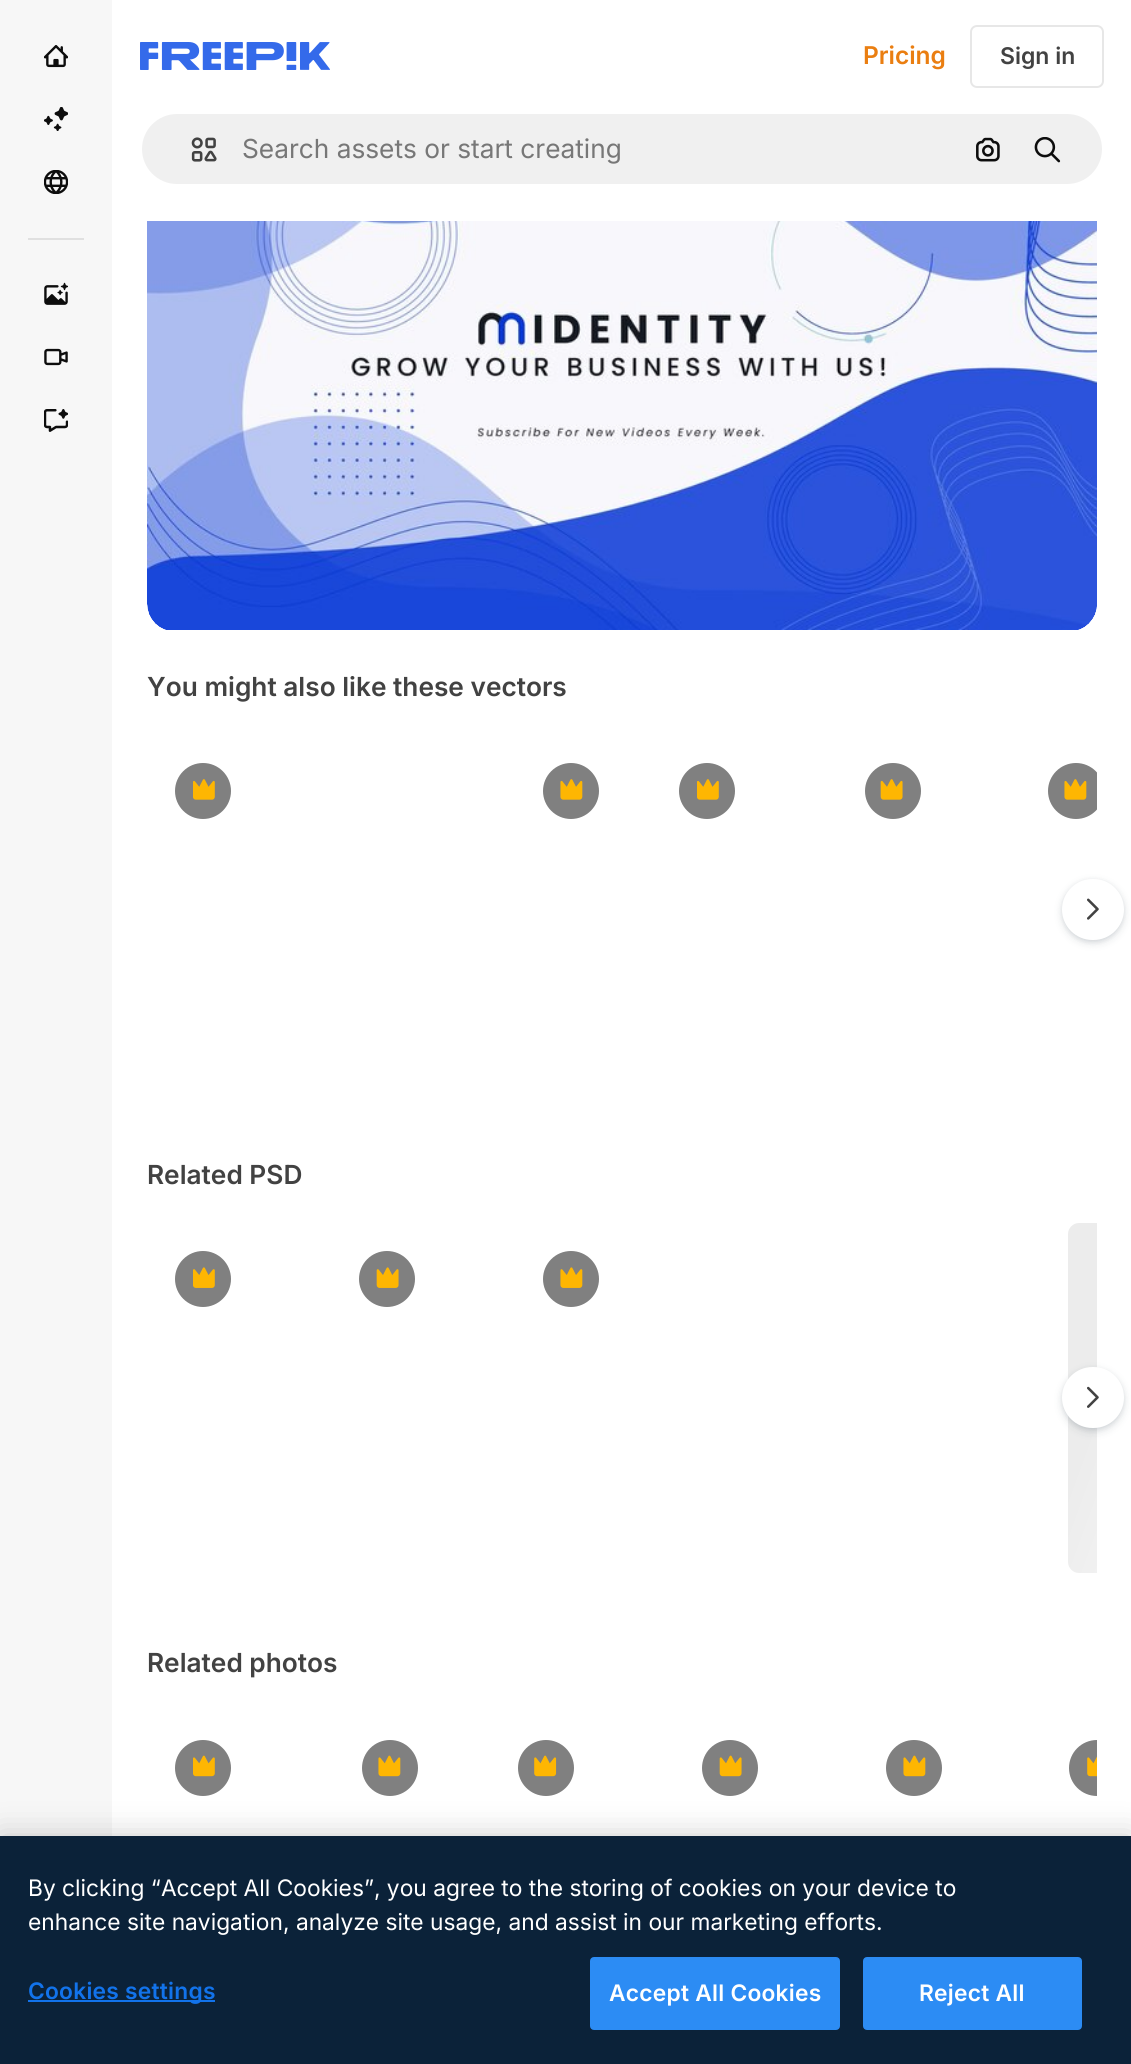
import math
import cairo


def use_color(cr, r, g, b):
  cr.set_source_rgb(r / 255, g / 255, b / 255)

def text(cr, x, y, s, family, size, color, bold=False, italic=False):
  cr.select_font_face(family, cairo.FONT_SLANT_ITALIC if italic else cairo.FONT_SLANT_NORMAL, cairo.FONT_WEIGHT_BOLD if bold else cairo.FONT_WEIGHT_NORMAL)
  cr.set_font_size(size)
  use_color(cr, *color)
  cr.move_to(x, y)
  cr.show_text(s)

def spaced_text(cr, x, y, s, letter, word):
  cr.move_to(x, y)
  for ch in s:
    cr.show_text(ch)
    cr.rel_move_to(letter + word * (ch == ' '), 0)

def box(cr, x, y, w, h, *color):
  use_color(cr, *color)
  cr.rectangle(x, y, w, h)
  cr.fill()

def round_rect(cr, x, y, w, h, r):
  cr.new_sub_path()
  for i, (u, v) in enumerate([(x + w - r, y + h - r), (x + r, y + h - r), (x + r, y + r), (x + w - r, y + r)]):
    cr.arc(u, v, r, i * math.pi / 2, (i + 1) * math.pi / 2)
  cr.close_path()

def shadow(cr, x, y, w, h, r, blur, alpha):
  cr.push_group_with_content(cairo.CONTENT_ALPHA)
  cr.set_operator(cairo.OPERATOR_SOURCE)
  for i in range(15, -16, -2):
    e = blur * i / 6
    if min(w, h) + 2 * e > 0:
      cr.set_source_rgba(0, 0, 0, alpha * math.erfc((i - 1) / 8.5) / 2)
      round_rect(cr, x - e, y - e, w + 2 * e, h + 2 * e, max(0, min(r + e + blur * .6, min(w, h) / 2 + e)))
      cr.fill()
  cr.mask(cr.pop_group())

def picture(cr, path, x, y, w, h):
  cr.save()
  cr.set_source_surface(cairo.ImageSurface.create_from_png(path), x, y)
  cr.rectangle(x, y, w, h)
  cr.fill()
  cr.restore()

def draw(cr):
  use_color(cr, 255, 255, 255)
  cr.paint()
  box(cr, 0, 0, 112, 1836, 247, 247, 247)
  picture(cr, "img_01.png", 44, 45, 24, 23)
  picture(cr, "img_02.png", 44, 107, 24, 24)
  picture(cr, "img_03.png", 44, 170, 24, 24)
  box(cr, 28, 238, 56, 2, 224, 224, 224)
  picture(cr, "img_04.png", 44, 282, 24, 23)
  picture(cr, "img_05.png", 44, 348, 24, 18)
  picture(cr, "img_06.png", 44, 409, 24, 23)
  picture(cr, "img_07.png", 140, 42, 190, 28)
  round_rect(cr, 971, 26, 132, 61, 6)
  use_color(cr, 231, 231, 231)
  cr.stroke()
  use_color(cr, 240, 240, 240)
  round_rect(cr, 141, 113, 962, 72, 36)
  cr.fill_preserve()
  use_color(cr, 255, 255, 255)
  cr.stroke()
  picture(cr, "img_08.png", 191, 137, 26, 25)
  picture(cr, "img_09.png", 976, 137, 24, 25)
  picture(cr, "img_10.png", 1034, 137, 27, 26)
  picture(cr, "img_11.png", 147, 221, 950, 409)
  use_color(cr, 128, 128, 128)
  cr.arc(203, 791, 28, 0, 2 * math.pi)
  cr.fill()
  picture(cr, "img_12.png", 193, 779, 22, 21)
  cr.arc(571, 791, 28, 0, 2 * math.pi)
  cr.fill()
  picture(cr, "img_13.png", 560, 779, 23, 21)
  cr.arc(707, 791, 28, 0, 2 * math.pi)
  cr.fill()
  picture(cr, "img_12.png", 697, 779, 22, 21)
  cr.arc(893, 791, 28, 0, 2 * math.pi)
  cr.fill()
  picture(cr, "img_14.png", 880, 779, 23, 21)
  cr.save()
  cr.rectangle(147, 735, 950, 350)
  cr.clip()
  cr.arc(1076, 791, 28, 0, 2 * math.pi)
  cr.fill()
  cr.restore()
  picture(cr, "img_13.png", 1064, 779, 23, 21)
  use_color(cr, 55, 73, 87)
  shadow(cr, 1062, 882, 62, 61, 30.5, 4.5, 0.15)
  shadow(cr, 1062, 880, 62, 62, 31, 2, 0.1)
  use_color(cr, 255, 255, 255)
  round_rect(cr, 1062, 879, 62, 61, 30.5)
  cr.fill()
  picture(cr, "img_15.png", 1087, 898, 12, 22)
  use_color(cr, 128, 128, 128)
  cr.arc(203, 1279, 28, 0, 2 * math.pi)
  cr.fill()
  picture(cr, "img_16.png", 193, 1267, 22, 21)
  cr.arc(387, 1279, 28, 0, 2 * math.pi)
  cr.fill()
  picture(cr, "img_17.png", 376, 1267, 23, 21)
  cr.arc(571, 1279, 28, 0, 2 * math.pi)
  cr.fill()
  picture(cr, "img_18.png", 560, 1267, 23, 21)
  gradient = cairo.LinearGradient(1073, 1209, 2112, 1587)
  gradient.add_color_stop_rgba(0.08, 0.925, 0.925, 0.925, 1)
  gradient.add_color_stop_rgba(0.18, 0.961, 0.961, 0.961, 1)
  gradient.add_color_stop_rgba(0.33, 0.925, 0.925, 0.925, 1)
  cr.set_source(gradient)
  cr.new_path()
  cr.move_to(1079, 1223)
  cr.line_to(1097, 1223)
  cr.line_to(1097, 1573)
  cr.line_to(1079, 1573)
  cr.curve_to(1073, 1573, 1068, 1568, 1068, 1562)
  cr.line_to(1068, 1234)
  cr.curve_to(1068, 1228, 1073, 1223, 1079, 1223)
  cr.close_path()
  cr.fill()
  use_color(cr, 55, 73, 87)
  shadow(cr, 1062, 1370, 62, 62, 31, 4.5, 0.15)
  shadow(cr, 1062, 1369, 62, 61, 30.5, 2, 0.1)
  use_color(cr, 255, 255, 255)
  round_rect(cr, 1062, 1367, 62, 61, 30.5)
  cr.fill()
  picture(cr, "img_19.png", 1087, 1386, 12, 22)
  use_color(cr, 128, 128, 128)
  cr.arc(203, 1768, 28, 0, 2 * math.pi)
  cr.fill()
  picture(cr, "img_20.png", 193, 1755, 22, 22)
  cr.arc(390, 1768, 28, 0, 2 * math.pi)
  cr.fill()
  picture(cr, "img_21.png", 378, 1755, 23, 22)
  cr.arc(546, 1768, 28, 0, 2 * math.pi)
  cr.fill()
  picture(cr, "img_22.png", 534, 1755, 23, 22)
  cr.arc(730, 1768, 28, 0, 2 * math.pi)
  cr.fill()
  picture(cr, "img_23.png", 719, 1755, 23, 22)
  cr.arc(914, 1768, 28, 0, 2 * math.pi)
  cr.fill()
  picture(cr, "img_21.png", 903, 1755, 23, 22)
  cr.new_path()
  cr.move_to(1097, 1740)
  cr.line_to(1097, 1796)
  cr.curve_to(1081.5, 1796, 1069, 1783.5, 1069, 1768)
  cr.curve_to(1069, 1752.5, 1081.5, 1740, 1097, 1740)
  cr.close_path()
  cr.fill()
  picture(cr, "img_24.png", 1087, 1756, 10, 21)
  use_color(cr, 0, 0, 0)
  shadow(cr, 0, 1836, 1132, 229, 0, 16, 0.2)
  box(cr, 0, 1836, 1131, 228, 11, 34, 57)
  box(cr, 28, 2000, 187, 2, 18, 115, 235)
  use_color(cr, 44, 140, 244)
  round_rect(cr, 591, 1958, 248, 71, 3)
  cr.fill_preserve()
  cr.stroke()
  round_rect(cr, 864, 1958, 217, 71, 3)
  cr.fill_preserve()
  cr.stroke()
  text(cr, 863, 64, "Pricing", "Inter SemiBold", 24.5, (234, 126, 17))
  text(cr, 1000, 64, "Sign in", "Inter SemiBold", 23, (66, 66, 66))
  text(cr, 242, 158, "Search assets or start creating", "Inter", 26.25, (119, 119, 119))
  text(cr, 147, 696, "You might also like these vectors", "Inter SemiBold", 26.25, (66, 66, 66))
  text(cr, 147, 1184, "Related PSD", "Inter SemiBold", 26.25, (66, 66, 66))
  text(cr, 147, 1672, "Related photos", "Inter SemiBold", 26.25, (66, 66, 66))
  text(cr, 28, 1896, "By clicking “Accept All Cookies”, you agree to the storing of cookies on your device to", "Inter", 22.75, (255, 255, 255))
  text(cr, 28, 1930, "enhance site navigation, analyze site usage, and assist in our marketing efforts.", "Inter", 22.75, (255, 255, 255))
  cr.select_font_face("Inter SemiBold")
  use_color(cr, 18, 115, 235)
  spaced_text(cr, 28, 1999, "Cookies settings", 0.25, 0)
  use_color(cr, 255, 255, 255)
  spaced_text(cr, 609, 2001, "Accept All Cookies", 0.25, 0)
  spaced_text(cr, 919, 2001, "Reject All", 0.25, 0)


surface = cairo.ImageSurface(cairo.FORMAT_RGB24, 1131, 2064)
cr = cairo.Context(surface)
options = cairo.FontOptions()
options.set_hint_metrics(cairo.HINT_METRICS_OFF)
options.set_hint_style(cairo.HINT_STYLE_NONE)
cr.set_font_options(options)
cr.set_miter_limit(4)
draw(cr)
surface.write_to_png("out.png")
